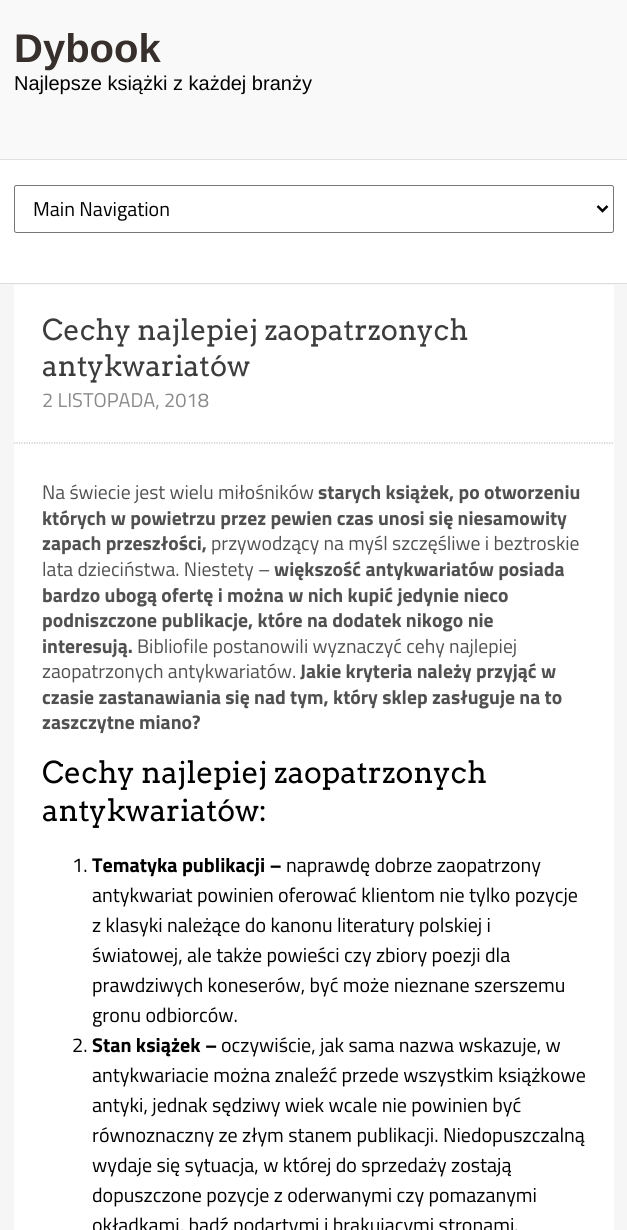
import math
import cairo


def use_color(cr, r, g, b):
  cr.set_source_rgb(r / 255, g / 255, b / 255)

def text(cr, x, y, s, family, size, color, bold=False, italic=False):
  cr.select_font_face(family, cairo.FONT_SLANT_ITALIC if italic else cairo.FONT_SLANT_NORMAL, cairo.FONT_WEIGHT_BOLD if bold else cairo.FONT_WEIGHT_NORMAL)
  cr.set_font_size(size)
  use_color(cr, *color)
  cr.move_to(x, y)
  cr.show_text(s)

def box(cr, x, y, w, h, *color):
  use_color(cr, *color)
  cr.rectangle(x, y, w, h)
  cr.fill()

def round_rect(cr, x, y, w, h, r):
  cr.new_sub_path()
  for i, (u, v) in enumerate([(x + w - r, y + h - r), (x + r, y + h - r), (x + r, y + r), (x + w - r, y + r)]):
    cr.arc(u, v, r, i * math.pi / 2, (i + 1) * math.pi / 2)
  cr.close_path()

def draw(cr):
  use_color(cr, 255, 255, 255)
  cr.paint()
  box(cr, 0, 0, 627, 159, 249, 249, 249)
  box(cr, 0, 159, 627, 1, 224, 224, 224)
  box(cr, 0, 283, 627, 1, 221, 221, 221)
  round_rect(cr, 14.5, 185.5, 599, 47, 2)
  use_color(cr, 118, 118, 118)
  cr.set_line_width(1)
  cr.stroke()
  cr.new_path()
  cr.move_to(597.5, 206)
  cr.line_to(602.5, 211)
  cr.line_to(607.5, 206)
  use_color(cr, 0, 0, 0)
  cr.set_line_width(2.5)
  cr.stroke()
  box(cr, 0, 284, 627, 946, 246, 246, 246)
  box(cr, 14, 285, 600, 945, 255, 255, 255)
  cr.new_path()
  cr.move_to(14, 443)
  cr.line_to(614, 443)
  use_color(cr, 192, 192, 192)
  cr.set_line_width(1.2)
  cr.set_dash([1.25, 1.25])
  cr.stroke()
  text(cr, 14, 62, "Dybook", "Liberation Sans", 40, (54, 47, 43), bold=True)
  text(cr, 14, 90, "Najlepsze książki z każdej branży", "Liberation Sans", 20, (0, 0, 0))
  text(cr, 33, 216, "Main Navigation", "Titillium Web", 20, (0, 0, 0))
  text(cr, 42, 340, "Cechy najlepiej zaopatrzonych", "Arvo", 28.75, (60, 60, 60))
  text(cr, 42, 376, "antykwariatów", "Arvo", 28.75, (60, 60, 60))
  text(cr, 42, 407, "2 LISTOPADA, 2018", "Titillium Web", 20, (138, 138, 138))
  text(cr, 42, 499, "Na świecie jest wielu miłośników", "Titillium Web", 19.65, (81, 81, 81))
  text(cr, 318, 499, "starych książek, po otworzeniu", "Titillium Web", 19.65, (81, 81, 81), bold=True)
  text(cr, 42, 525, "których w powietrzu przez pewien czas unosi się niesamowity", "Titillium Web", 19.65, (81, 81, 81), bold=True)
  text(cr, 42, 550, "zapach przeszłości,", "Titillium Web", 19.65, (81, 81, 81), bold=True)
  text(cr, 211, 550, "przywodzący na myśl szczęśliwe i beztroskie", "Titillium Web", 19.65, (81, 81, 81))
  text(cr, 42, 576, "lata dzieciństwa. Niestety –", "Titillium Web", 19.65, (81, 81, 81))
  text(cr, 274, 576, "większość antykwariatów posiada", "Titillium Web", 19.65, (81, 81, 81), bold=True)
  text(cr, 42, 602, "bardzo ubogą ofertę i można w nich kupić jedynie nieco", "Titillium Web", 19.65, (81, 81, 81), bold=True)
  text(cr, 42, 627, "podniszczone publikacje, które na dodatek nikogo nie", "Titillium Web", 19.65, (81, 81, 81), bold=True)
  text(cr, 42, 653, "interesują.", "Titillium Web", 19.65, (81, 81, 81), bold=True)
  text(cr, 137, 653, "Bibliofile postanowili wyznaczyć cehy najlepiej", "Titillium Web", 19.65, (81, 81, 81))
  text(cr, 42, 678, "zaopatrzonych antykwariatów.", "Titillium Web", 19.65, (81, 81, 81))
  text(cr, 300, 678, "Jakie kryteria należy przyjąć w", "Titillium Web", 19.65, (81, 81, 81), bold=True)
  text(cr, 42, 704, "czasie zastanawiania się nad tym, który sklep zasługuje na to", "Titillium Web", 19.65, (81, 81, 81), bold=True)
  text(cr, 42, 729, "zaszczytne miano?", "Titillium Web", 19.65, (81, 81, 81), bold=True)
  text(cr, 42, 783, "Cechy najlepiej zaopatrzonych", "Arvo", 30, (0, 0, 0))
  text(cr, 42, 821, "antykwariatów:", "Arvo", 30, (0, 0, 0))
  text(cr, 72, 872, "1.", "Titillium Web", 20, (0, 0, 0))
  text(cr, 92, 872, "Tematyka publikacji –", "Titillium Web", 20, (0, 0, 0), bold=True)
  text(cr, 286, 872, "naprawdę dobrze zaopatrzony", "Titillium Web", 20, (0, 0, 0))
  text(cr, 92, 902, "antykwariat powinien oferować klientom nie tylko pozycje", "Titillium Web", 20, (0, 0, 0))
  text(cr, 92, 932, "z klasyki należące do kanonu literatury polskiej i", "Titillium Web", 20, (0, 0, 0))
  text(cr, 92, 962, "światowej, ale także powieści czy zbiory poezji dla", "Titillium Web", 20, (0, 0, 0))
  text(cr, 92, 992, "prawdziwych koneserów, być może nieznane szerszemu", "Titillium Web", 20, (0, 0, 0))
  text(cr, 92, 1022, "gronu odbiorców.", "Titillium Web", 20, (0, 0, 0))
  text(cr, 72, 1052, "2.", "Titillium Web", 20, (0, 0, 0))
  text(cr, 92, 1052, "Stan książek –", "Titillium Web", 20, (0, 0, 0), bold=True)
  text(cr, 221, 1052, "oczywiście, jak sama nazwa wskazuje, w", "Titillium Web", 20, (0, 0, 0))
  text(cr, 92, 1082, "antykwariacie można znaleźć przede wszystkim książkowe", "Titillium Web", 20, (0, 0, 0))
  text(cr, 92, 1112, "antyki, jednak sędziwy wiek wcale nie powinien być", "Titillium Web", 20, (0, 0, 0))
  text(cr, 92, 1142, "równoznaczny ze złym stanem publikacji. Niedopuszczalną", "Titillium Web", 20, (0, 0, 0))
  text(cr, 92, 1172, "wydaje się sytuacja, w której do sprzedaży zostają", "Titillium Web", 20, (0, 0, 0))
  text(cr, 92, 1202, "dopuszczone pozycje z oderwanymi czy pomazanymi", "Titillium Web", 20, (0, 0, 0))
  text(cr, 92, 1232, "okładkami, bądź podartymi i brakującymi stronami.", "Titillium Web", 20, (0, 0, 0))


surface = cairo.ImageSurface(cairo.FORMAT_RGB24, 627, 1230)
cr = cairo.Context(surface)
options = cairo.FontOptions()
options.set_hint_metrics(cairo.HINT_METRICS_OFF)
options.set_hint_style(cairo.HINT_STYLE_NONE)
cr.set_font_options(options)
cr.set_miter_limit(4)
draw(cr)
surface.write_to_png("out.png")
